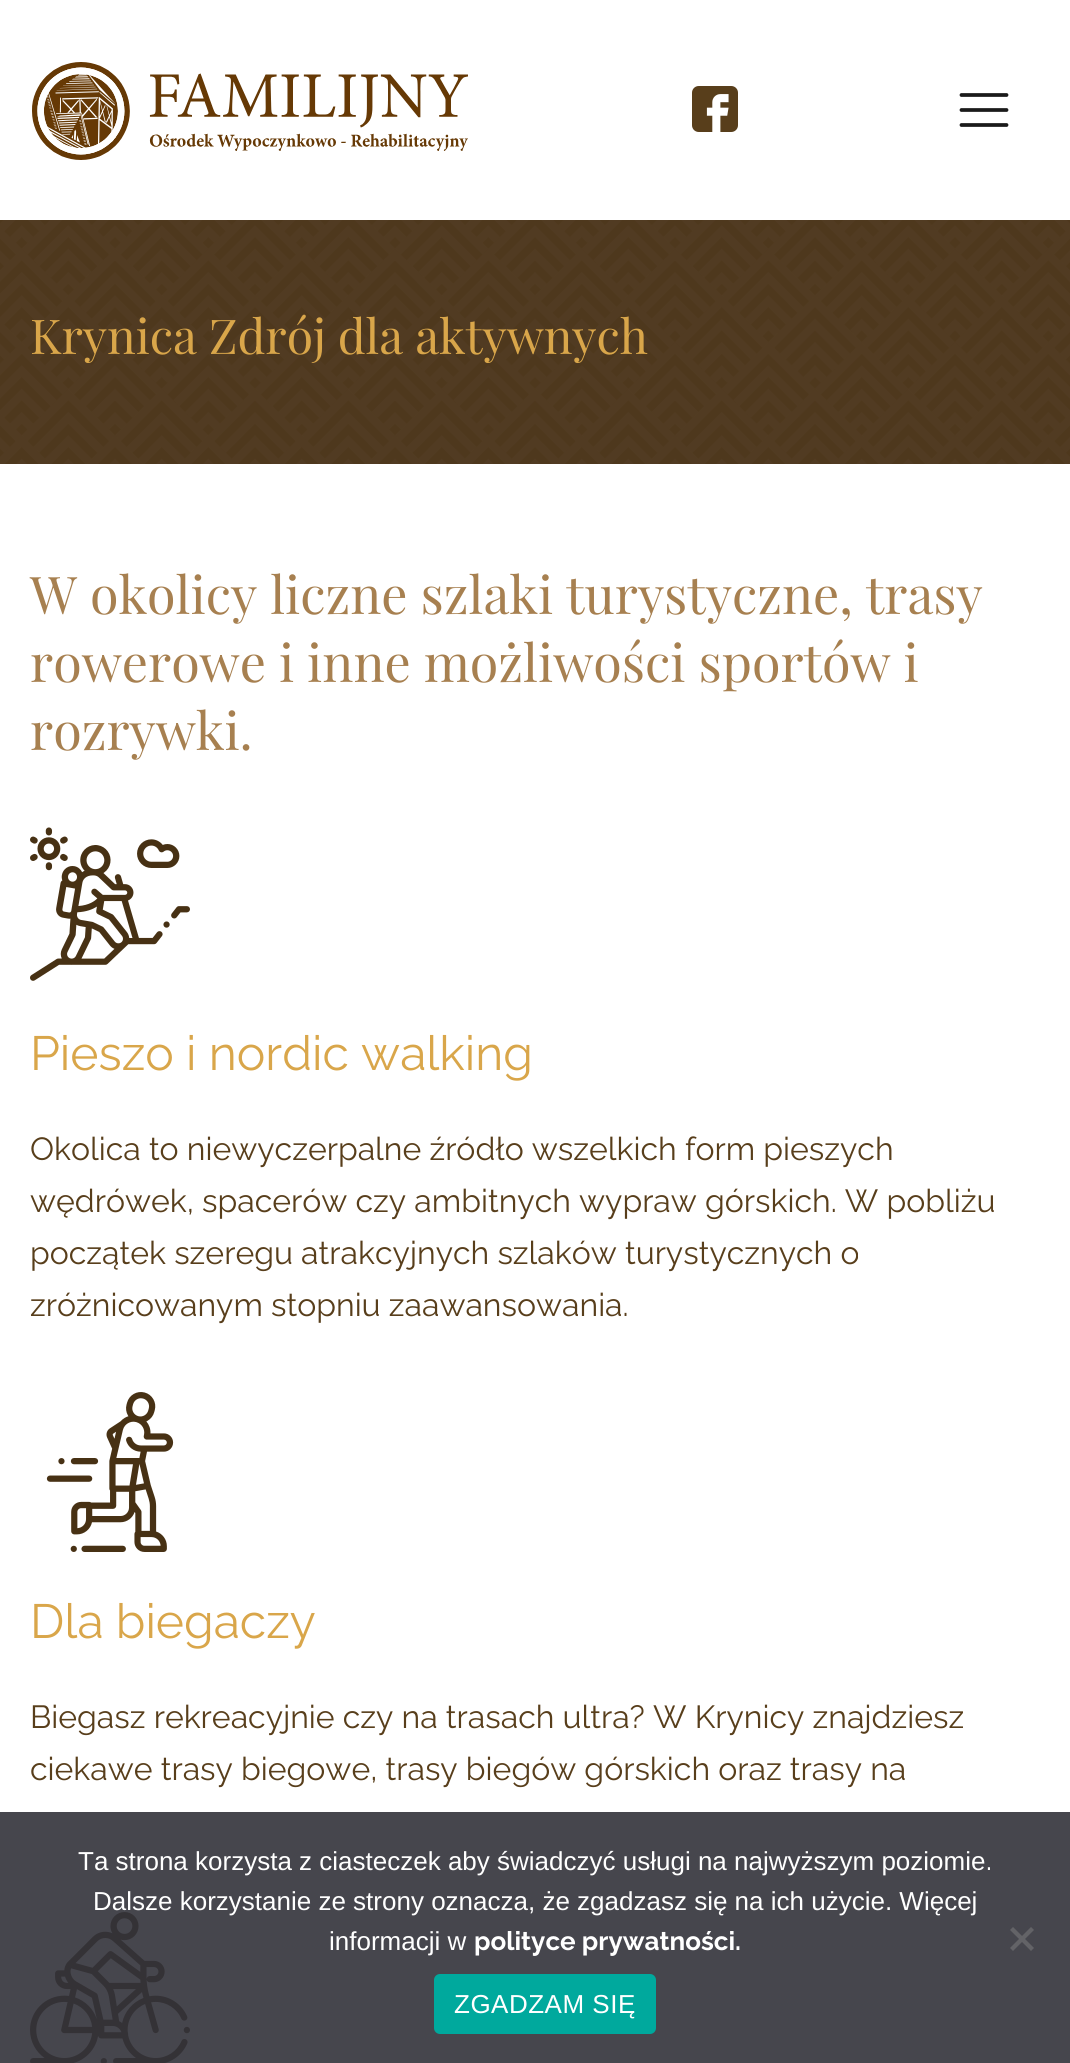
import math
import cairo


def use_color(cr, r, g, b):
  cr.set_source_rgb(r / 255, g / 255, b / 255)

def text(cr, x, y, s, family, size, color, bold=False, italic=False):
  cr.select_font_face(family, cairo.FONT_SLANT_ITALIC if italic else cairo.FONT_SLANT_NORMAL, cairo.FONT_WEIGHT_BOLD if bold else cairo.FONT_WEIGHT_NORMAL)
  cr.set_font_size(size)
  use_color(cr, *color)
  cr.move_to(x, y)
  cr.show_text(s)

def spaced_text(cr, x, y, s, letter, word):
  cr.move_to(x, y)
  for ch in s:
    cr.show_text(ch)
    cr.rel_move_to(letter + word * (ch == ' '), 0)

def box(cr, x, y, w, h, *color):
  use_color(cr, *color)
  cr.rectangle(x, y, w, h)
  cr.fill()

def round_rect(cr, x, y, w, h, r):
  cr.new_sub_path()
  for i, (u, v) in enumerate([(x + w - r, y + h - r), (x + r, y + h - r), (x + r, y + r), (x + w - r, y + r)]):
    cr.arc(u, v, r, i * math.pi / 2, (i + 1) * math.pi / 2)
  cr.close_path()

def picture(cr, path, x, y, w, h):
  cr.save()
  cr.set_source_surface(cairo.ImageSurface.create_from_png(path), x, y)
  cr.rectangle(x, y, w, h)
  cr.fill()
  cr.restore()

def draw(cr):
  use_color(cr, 255, 255, 255)
  cr.paint()
  picture(cr, "img_01.png", 32, 62, 436, 98)
  picture(cr, "img_02.png", 692, 86, 46, 46)
  cr.new_path()
  cr.move_to(961.5, 95)
  cr.line_to(1006.5, 95)
  cr.move_to(961.5, 110)
  cr.line_to(1006.5, 110)
  cr.move_to(961.5, 125)
  cr.line_to(1006.5, 125)
  use_color(cr, 26, 26, 26)
  cr.set_line_width(3.8)
  cr.set_line_cap(cairo.LINE_CAP_ROUND)
  cr.stroke()
  box(cr, 0, 220, 1070, 244, 78, 56, 29)
  picture(cr, "img_03.png", 0, 220, 1070, 244)
  picture(cr, "img_04.png", 30, 827, 160, 154)
  picture(cr, "img_05.png", 46, 1392, 128, 160)
  picture(cr, "img_06.png", 30, 1912, 160, 151)
  cr.set_source_rgba(0.196, 0.196, 0.227, 0.9)
  cr.rectangle(0, 1812, 1070, 251)
  cr.fill()
  use_color(cr, 99, 99, 103)
  cr.new_path()
  cr.move_to(1031, 1927)
  cr.line_to(1034, 1930)
  cr.line_to(1013, 1951)
  cr.line_to(1010, 1948)
  cr.close_path()
  cr.fill()
  cr.new_path()
  cr.move_to(1010, 1930)
  cr.line_to(1013, 1927)
  cr.line_to(1034, 1948)
  cr.line_to(1031, 1951)
  cr.close_path()
  cr.fill()
  use_color(cr, 0, 169, 157)
  round_rect(cr, 434, 1974, 222, 60, 6)
  cr.fill()
  text(cr, 30, 354, "Krynica Zdrój dla aktywnych", "Playfair Display", 48, (217, 166, 74))
  text(cr, 30, 614, "W okolicy liczne szlaki turystyczne, trasy", "Playfair Display", 52, (167, 128, 80))
  text(cr, 30, 682, "rowerowe i inne możliwości sportów i", "Playfair Display", 52, (167, 128, 80))
  text(cr, 30, 750, "rozrywki.", "Playfair Display", 52, (167, 128, 80))
  text(cr, 30, 1070, "Pieszo i nordic walking", "Raleway", 48, (217, 166, 74))
  text(cr, 30, 1160, "Okolica to niewyczerpalne źródło wszelkich form pieszych", "Raleway", 32, (88, 62, 27))
  text(cr, 30, 1212, "wędrówek, spacerów czy ambitnych wypraw górskich. W pobliżu", "Raleway", 32, (88, 62, 27))
  text(cr, 30, 1264, "początek szeregu atrakcyjnych szlaków turystycznych o", "Raleway", 32, (88, 62, 27))
  text(cr, 30, 1316, "zróżnicowanym stopniu zaawansowania.", "Raleway", 32, (88, 62, 27))
  text(cr, 30, 1638, "Dla biegaczy", "Raleway", 48, (217, 166, 74))
  text(cr, 30, 1728, "Biegasz rekreacyjnie czy na trasach ultra? W Krynicy znajdziesz", "Raleway", 32, (88, 62, 27))
  text(cr, 30, 1780, "ciekawe trasy biegowe, trasy biegów górskich oraz trasy na", "Raleway", 32, (88, 62, 27))
  text(cr, 78, 1870, "Ta strona korzysta z ciasteczek aby świadczyć usługi na najwyższym poziomie.", "Liberation Sans", 26, (255, 255, 255))
  text(cr, 93, 1910, "Dalsze korzystanie ze strony oznacza, że zgadzasz się na ich użycie. Więcej", "Liberation Sans", 26, (255, 255, 255))
  text(cr, 329, 1950, "informacji w", "Liberation Sans", 26, (255, 255, 255))
  text(cr, 474, 1950, "polityce prywatności.", "Raleway", 26, (255, 255, 255), bold=True)
  cr.select_font_face("Liberation Sans")
  spaced_text(cr, 454, 2013, "ZGADZAM SIĘ", 0.5, 0)


surface = cairo.ImageSurface(cairo.FORMAT_RGB24, 1070, 2063)
cr = cairo.Context(surface)
options = cairo.FontOptions()
options.set_hint_metrics(cairo.HINT_METRICS_OFF)
options.set_hint_style(cairo.HINT_STYLE_NONE)
cr.set_font_options(options)
cr.set_miter_limit(4)
draw(cr)
surface.write_to_png("out.png")
